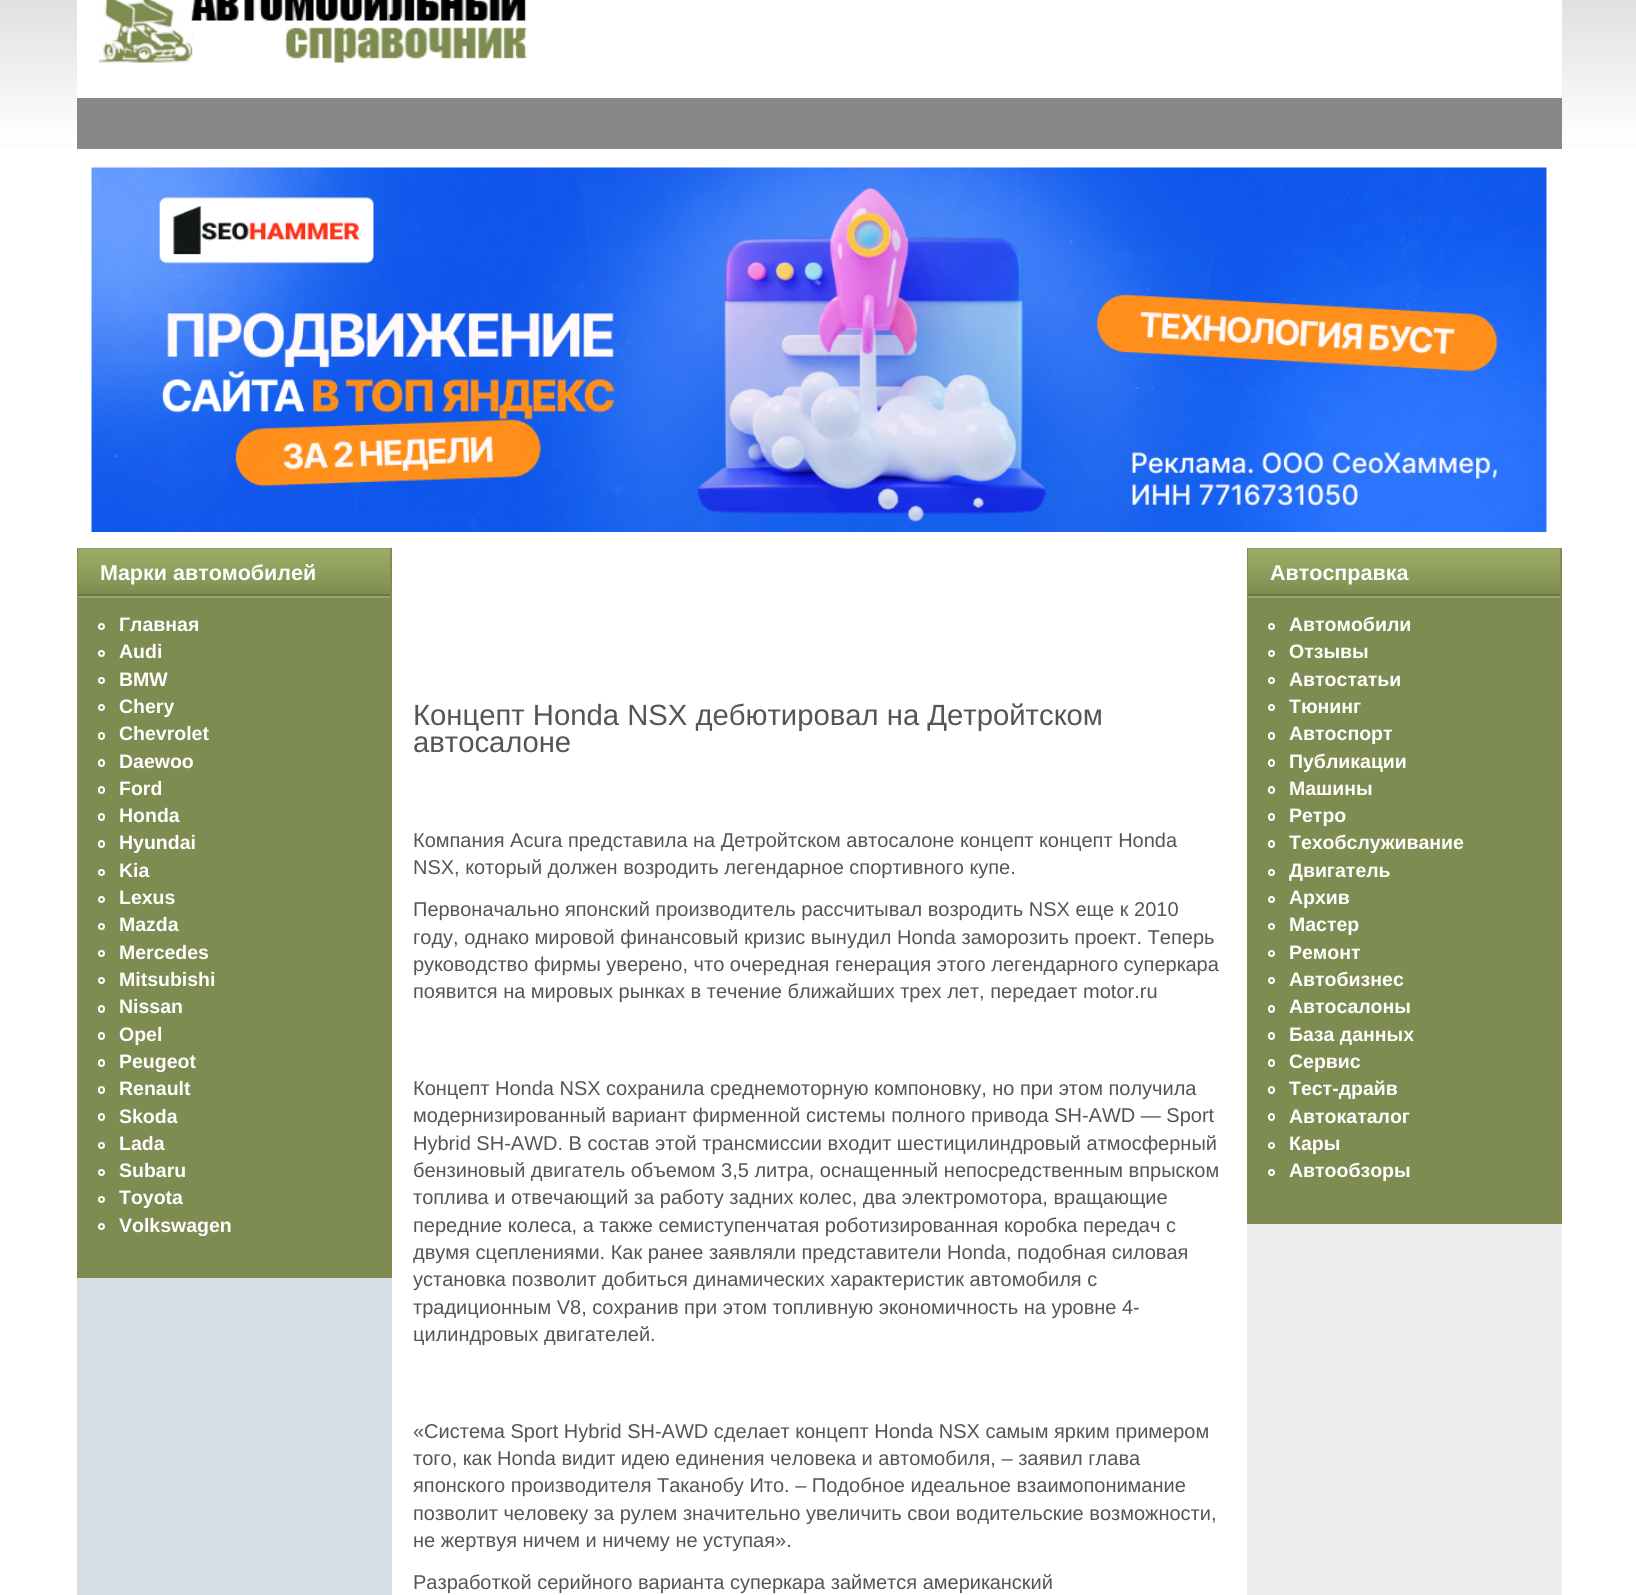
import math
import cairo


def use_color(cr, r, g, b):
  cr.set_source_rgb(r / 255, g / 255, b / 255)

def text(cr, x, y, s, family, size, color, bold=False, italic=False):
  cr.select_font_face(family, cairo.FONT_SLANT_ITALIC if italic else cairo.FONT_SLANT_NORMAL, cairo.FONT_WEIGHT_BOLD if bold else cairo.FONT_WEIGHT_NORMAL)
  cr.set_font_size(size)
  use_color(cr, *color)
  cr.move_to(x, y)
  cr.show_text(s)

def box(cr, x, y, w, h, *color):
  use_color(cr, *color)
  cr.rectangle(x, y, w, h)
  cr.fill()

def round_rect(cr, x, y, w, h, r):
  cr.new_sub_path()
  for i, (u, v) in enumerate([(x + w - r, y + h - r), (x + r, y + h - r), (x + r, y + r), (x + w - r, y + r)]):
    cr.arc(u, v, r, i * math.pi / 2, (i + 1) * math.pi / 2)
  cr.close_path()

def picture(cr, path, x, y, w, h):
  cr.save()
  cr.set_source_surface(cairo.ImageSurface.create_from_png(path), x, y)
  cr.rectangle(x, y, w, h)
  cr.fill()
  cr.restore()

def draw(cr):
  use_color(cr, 255, 255, 255)
  cr.paint()
  picture(cr, "img_01.png", 0, 0, 1636, 145)
  box(cr, 77, 0, 1485, 145, 255, 255, 255)
  picture(cr, "img_02.png", 99, 0, 428, 63)
  box(cr, 77, 98, 1485, 51, 136, 136, 136)
  picture(cr, "img_03.png", 91, 167, 1456, 365)
  box(cr, 77, 1278, 315, 317, 212, 222, 227)
  box(cr, 1247, 1224, 315, 371, 238, 238, 238)
  box(cr, 77, 548, 315, 730, 127, 140, 81)
  picture(cr, "img_04.png", 78, 548, 312, 42)
  box(cr, 78, 594, 312, 2, 107, 118, 67)
  box(cr, 78, 596, 312, 2, 151, 167, 99)
  cr.arc(101.5, 626.5, 2.5, 0, 2 * math.pi)
  use_color(cr, 255, 255, 255)
  cr.stroke()
  cr.arc(101.5, 653.5, 2.5, 0, 2 * math.pi)
  cr.stroke()
  cr.arc(101.5, 680.5, 2.5, 0, 2 * math.pi)
  cr.stroke()
  cr.arc(101.5, 707.5, 2.5, 0, 2 * math.pi)
  cr.stroke()
  round_rect(cr, 99, 733, 5, 6, 2.5)
  cr.stroke()
  round_rect(cr, 99, 760, 5, 6, 2.5)
  cr.stroke()
  round_rect(cr, 99, 787, 5, 6, 2.5)
  cr.stroke()
  round_rect(cr, 99, 814, 5, 6, 2.5)
  cr.stroke()
  round_rect(cr, 99, 841, 5, 6, 2.5)
  cr.stroke()
  cr.arc(101.5, 872.5, 2.5, 0, 2 * math.pi)
  cr.stroke()
  cr.arc(101.5, 899.5, 2.5, 0, 2 * math.pi)
  cr.stroke()
  cr.arc(101.5, 926.5, 2.5, 0, 2 * math.pi)
  cr.stroke()
  cr.arc(101.5, 953.5, 2.5, 0, 2 * math.pi)
  cr.stroke()
  cr.arc(101.5, 980.5, 2.5, 0, 2 * math.pi)
  cr.stroke()
  round_rect(cr, 99, 1006, 5, 6, 2.5)
  cr.stroke()
  round_rect(cr, 99, 1033, 5, 6, 2.5)
  cr.stroke()
  round_rect(cr, 99, 1060, 5, 6, 2.5)
  cr.stroke()
  round_rect(cr, 99, 1087, 5, 6, 2.5)
  cr.stroke()
  round_rect(cr, 99, 1114, 5, 6, 2.5)
  cr.stroke()
  cr.arc(101.5, 1145.5, 2.5, 0, 2 * math.pi)
  cr.stroke()
  cr.arc(101.5, 1172.5, 2.5, 0, 2 * math.pi)
  cr.stroke()
  cr.arc(101.5, 1199.5, 2.5, 0, 2 * math.pi)
  cr.stroke()
  cr.arc(101.5, 1226.5, 2.5, 0, 2 * math.pi)
  cr.stroke()
  box(cr, 1247, 548, 315, 676, 127, 140, 81)
  picture(cr, "img_04.png", 1248, 548, 312, 42)
  box(cr, 1248, 594, 312, 2, 107, 118, 67)
  box(cr, 1248, 596, 312, 2, 151, 167, 99)
  cr.arc(1271.5, 626.5, 2.5, 0, 2 * math.pi)
  use_color(cr, 255, 255, 255)
  cr.stroke()
  cr.arc(1271.5, 653.5, 2.5, 0, 2 * math.pi)
  cr.stroke()
  cr.arc(1271.5, 680.5, 2.5, 0, 2 * math.pi)
  cr.stroke()
  cr.arc(1271.5, 707.5, 2.5, 0, 2 * math.pi)
  cr.stroke()
  round_rect(cr, 1269, 733, 5, 6, 2.5)
  cr.stroke()
  round_rect(cr, 1269, 760, 5, 6, 2.5)
  cr.stroke()
  round_rect(cr, 1269, 787, 5, 6, 2.5)
  cr.stroke()
  round_rect(cr, 1269, 814, 5, 6, 2.5)
  cr.stroke()
  round_rect(cr, 1269, 841, 5, 6, 2.5)
  cr.stroke()
  cr.arc(1271.5, 872.5, 2.5, 0, 2 * math.pi)
  cr.stroke()
  cr.arc(1271.5, 899.5, 2.5, 0, 2 * math.pi)
  cr.stroke()
  cr.arc(1271.5, 926.5, 2.5, 0, 2 * math.pi)
  cr.stroke()
  cr.arc(1271.5, 953.5, 2.5, 0, 2 * math.pi)
  cr.stroke()
  cr.arc(1271.5, 980.5, 2.5, 0, 2 * math.pi)
  cr.stroke()
  round_rect(cr, 1269, 1006, 5, 6, 2.5)
  cr.stroke()
  round_rect(cr, 1269, 1033, 5, 6, 2.5)
  cr.stroke()
  round_rect(cr, 1269, 1060, 5, 6, 2.5)
  cr.stroke()
  round_rect(cr, 1269, 1087, 5, 6, 2.5)
  cr.stroke()
  round_rect(cr, 1269, 1114, 5, 6, 2.5)
  cr.stroke()
  cr.arc(1271.5, 1145.5, 2.5, 0, 2 * math.pi)
  cr.stroke()
  cr.arc(1271.5, 1172.5, 2.5, 0, 2 * math.pi)
  cr.stroke()
  text(cr, 100, 580, "Марки автомобилей", "Liberation Sans", 21.5, (255, 255, 255), bold=True)
  text(cr, 119, 631, "Главная", "Liberation Sans", 19.5, (255, 255, 255), bold=True)
  text(cr, 119, 658, "Audi", "Liberation Sans", 19.5, (255, 255, 255), bold=True)
  text(cr, 119, 686, "BMW", "Liberation Sans", 19.5, (255, 255, 255), bold=True)
  text(cr, 119, 713, "Chery", "Liberation Sans", 19.5, (255, 255, 255), bold=True)
  text(cr, 119, 740, "Chevrolet", "Liberation Sans", 19.5, (255, 255, 255), bold=True)
  text(cr, 119, 768, "Daewoo", "Liberation Sans", 19.5, (255, 255, 255), bold=True)
  text(cr, 119, 795, "Ford", "Liberation Sans", 19.5, (255, 255, 255), bold=True)
  text(cr, 119, 822, "Honda", "Liberation Sans", 19.5, (255, 255, 255), bold=True)
  text(cr, 119, 849, "Hyundai", "Liberation Sans", 19.5, (255, 255, 255), bold=True)
  text(cr, 119, 877, "Kia", "Liberation Sans", 19.5, (255, 255, 255), bold=True)
  text(cr, 119, 904, "Lexus", "Liberation Sans", 19.5, (255, 255, 255), bold=True)
  text(cr, 119, 931, "Mazda", "Liberation Sans", 19.5, (255, 255, 255), bold=True)
  text(cr, 119, 959, "Mercedes", "Liberation Sans", 19.5, (255, 255, 255), bold=True)
  text(cr, 119, 986, "Mitsubishi", "Liberation Sans", 19.5, (255, 255, 255), bold=True)
  text(cr, 119, 1013, "Nissan", "Liberation Sans", 19.5, (255, 255, 255), bold=True)
  text(cr, 119, 1041, "Opel", "Liberation Sans", 19.5, (255, 255, 255), bold=True)
  text(cr, 119, 1068, "Peugeot", "Liberation Sans", 19.5, (255, 255, 255), bold=True)
  text(cr, 119, 1095, "Renault", "Liberation Sans", 19.5, (255, 255, 255), bold=True)
  text(cr, 119, 1123, "Skoda", "Liberation Sans", 19.5, (255, 255, 255), bold=True)
  text(cr, 119, 1150, "Lada", "Liberation Sans", 19.5, (255, 255, 255), bold=True)
  text(cr, 119, 1177, "Subaru", "Liberation Sans", 19.5, (255, 255, 255), bold=True)
  text(cr, 119, 1204, "Toyota", "Liberation Sans", 19.5, (255, 255, 255), bold=True)
  text(cr, 119, 1232, "Volkswagen", "Liberation Sans", 19.5, (255, 255, 255), bold=True)
  text(cr, 413, 725, "Концепт Honda NSX дебютировал на Детройтском", "Liberation Sans", 29.25, (85, 85, 85))
  text(cr, 413, 752, "автосалоне", "Liberation Sans", 29.25, (85, 85, 85))
  text(cr, 413, 847, "Компания Acura представила на Детройтском автосалоне концепт концепт Honda", "Liberation Sans", 20, (85, 85, 85))
  text(cr, 413, 874, "NSX, который должен возродить легендарное спортивного купе.", "Liberation Sans", 20, (85, 85, 85))
  text(cr, 413, 916, "Первоначально японский производитель рассчитывал возродить NSX еще к 2010", "Liberation Sans", 20, (85, 85, 85))
  text(cr, 413, 944, "году, однако мировой финансовый кризис вынудил Honda заморозить проект. Теперь", "Liberation Sans", 20, (85, 85, 85))
  text(cr, 413, 971, "руководство фирмы уверено, что очередная генерация этого легендарного суперкара", "Liberation Sans", 20, (85, 85, 85))
  text(cr, 413, 998, "появится на мировых рынках в течение ближайших трех лет, передает motor.ru", "Liberation Sans", 20, (85, 85, 85))
  text(cr, 413, 1095, "Концепт Honda NSX сохранила среднемоторную компоновку, но при этом получила", "Liberation Sans", 20, (85, 85, 85))
  text(cr, 413, 1122, "модернизированный вариант фирменной системы полного привода SH-AWD — Sport", "Liberation Sans", 20, (85, 85, 85))
  text(cr, 413, 1150, "Hybrid SH-AWD. В состав этой трансмиссии входит шестицилиндровый атмосферный", "Liberation Sans", 20, (85, 85, 85))
  text(cr, 413, 1177, "бензиновый двигатель объемом 3,5 литра, оснащенный непосредственным впрыском", "Liberation Sans", 20, (85, 85, 85))
  text(cr, 413, 1204, "топлива и отвечающий за работу задних колес, два электромотора, вращающие", "Liberation Sans", 20, (85, 85, 85))
  text(cr, 413, 1232, "передние колеса, а также семиступенчатая роботизированная коробка передач с", "Liberation Sans", 20, (85, 85, 85))
  text(cr, 413, 1259, "двумя сцеплениями. Как ранее заявляли представители Honda, подобная силовая", "Liberation Sans", 20, (85, 85, 85))
  text(cr, 413, 1286, "установка позволит добиться динамических характеристик автомобиля с", "Liberation Sans", 20, (85, 85, 85))
  text(cr, 413, 1314, "традиционным V8, сохранив при этом топливную экономичность на уровне 4-", "Liberation Sans", 20, (85, 85, 85))
  text(cr, 413, 1341, "цилиндровых двигателей.", "Liberation Sans", 20, (85, 85, 85))
  text(cr, 413, 1438, "«Система Sport Hybrid SH-AWD сделает концепт Honda NSX самым ярким примером", "Liberation Sans", 20, (85, 85, 85))
  text(cr, 413, 1465, "того, как Honda видит идею единения человека и автомобиля, – заявил глава", "Liberation Sans", 20, (85, 85, 85))
  text(cr, 413, 1492, "японского производителя Таканобу Ито. – Подобное идеальное взаимопонимание", "Liberation Sans", 20, (85, 85, 85))
  text(cr, 413, 1520, "позволит человеку за рулем значительно увеличить свои водительские возможности,", "Liberation Sans", 20, (85, 85, 85))
  text(cr, 413, 1547, "не жертвуя ничем и ничему не уступая».", "Liberation Sans", 20, (85, 85, 85))
  text(cr, 413, 1589, "Разработкой серийного варианта суперкара займется американский", "Liberation Sans", 20, (85, 85, 85))
  text(cr, 1270, 580, "Автосправка", "Liberation Sans", 21.5, (255, 255, 255), bold=True)
  text(cr, 1289, 631, "Автомобили", "Liberation Sans", 19.5, (255, 255, 255), bold=True)
  text(cr, 1289, 658, "Отзывы", "Liberation Sans", 19.5, (255, 255, 255), bold=True)
  text(cr, 1289, 686, "Автостатьи", "Liberation Sans", 19.5, (255, 255, 255), bold=True)
  text(cr, 1289, 713, "Тюнинг", "Liberation Sans", 19.5, (255, 255, 255), bold=True)
  text(cr, 1289, 740, "Автоспорт", "Liberation Sans", 19.5, (255, 255, 255), bold=True)
  text(cr, 1289, 768, "Публикации", "Liberation Sans", 19.5, (255, 255, 255), bold=True)
  text(cr, 1289, 795, "Машины", "Liberation Sans", 19.5, (255, 255, 255), bold=True)
  text(cr, 1289, 822, "Ретро", "Liberation Sans", 19.5, (255, 255, 255), bold=True)
  text(cr, 1289, 849, "Техобслуживание", "Liberation Sans", 19.5, (255, 255, 255), bold=True)
  text(cr, 1289, 877, "Двигатель", "Liberation Sans", 19.5, (255, 255, 255), bold=True)
  text(cr, 1289, 904, "Архив", "Liberation Sans", 19.5, (255, 255, 255), bold=True)
  text(cr, 1289, 931, "Мастер", "Liberation Sans", 19.5, (255, 255, 255), bold=True)
  text(cr, 1289, 959, "Ремонт", "Liberation Sans", 19.5, (255, 255, 255), bold=True)
  text(cr, 1289, 986, "Автобизнес", "Liberation Sans", 19.5, (255, 255, 255), bold=True)
  text(cr, 1289, 1013, "Автосалоны", "Liberation Sans", 19.5, (255, 255, 255), bold=True)
  text(cr, 1289, 1041, "База данных", "Liberation Sans", 19.5, (255, 255, 255), bold=True)
  text(cr, 1289, 1068, "Сервис", "Liberation Sans", 19.5, (255, 255, 255), bold=True)
  text(cr, 1289, 1095, "Тест-драйв", "Liberation Sans", 19.5, (255, 255, 255), bold=True)
  text(cr, 1289, 1123, "Автокаталог", "Liberation Sans", 19.5, (255, 255, 255), bold=True)
  text(cr, 1289, 1150, "Кары", "Liberation Sans", 19.5, (255, 255, 255), bold=True)
  text(cr, 1289, 1177, "Автообзоры", "Liberation Sans", 19.5, (255, 255, 255), bold=True)


surface = cairo.ImageSurface(cairo.FORMAT_RGB24, 1636, 1595)
cr = cairo.Context(surface)
options = cairo.FontOptions()
options.set_hint_metrics(cairo.HINT_METRICS_OFF)
options.set_hint_style(cairo.HINT_STYLE_NONE)
cr.set_font_options(options)
cr.set_miter_limit(4)
draw(cr)
surface.write_to_png("out.png")
